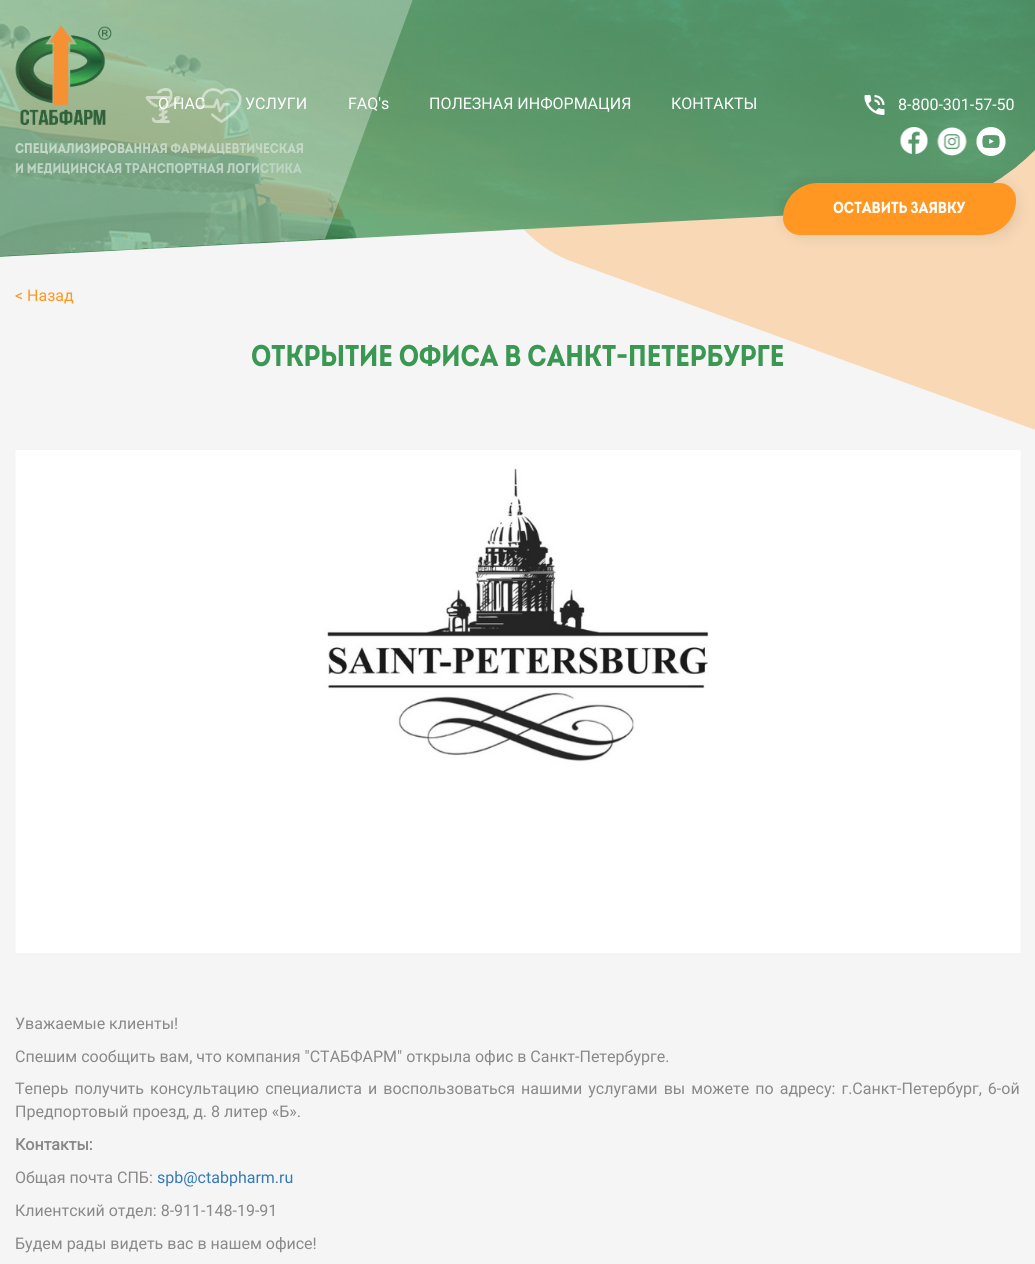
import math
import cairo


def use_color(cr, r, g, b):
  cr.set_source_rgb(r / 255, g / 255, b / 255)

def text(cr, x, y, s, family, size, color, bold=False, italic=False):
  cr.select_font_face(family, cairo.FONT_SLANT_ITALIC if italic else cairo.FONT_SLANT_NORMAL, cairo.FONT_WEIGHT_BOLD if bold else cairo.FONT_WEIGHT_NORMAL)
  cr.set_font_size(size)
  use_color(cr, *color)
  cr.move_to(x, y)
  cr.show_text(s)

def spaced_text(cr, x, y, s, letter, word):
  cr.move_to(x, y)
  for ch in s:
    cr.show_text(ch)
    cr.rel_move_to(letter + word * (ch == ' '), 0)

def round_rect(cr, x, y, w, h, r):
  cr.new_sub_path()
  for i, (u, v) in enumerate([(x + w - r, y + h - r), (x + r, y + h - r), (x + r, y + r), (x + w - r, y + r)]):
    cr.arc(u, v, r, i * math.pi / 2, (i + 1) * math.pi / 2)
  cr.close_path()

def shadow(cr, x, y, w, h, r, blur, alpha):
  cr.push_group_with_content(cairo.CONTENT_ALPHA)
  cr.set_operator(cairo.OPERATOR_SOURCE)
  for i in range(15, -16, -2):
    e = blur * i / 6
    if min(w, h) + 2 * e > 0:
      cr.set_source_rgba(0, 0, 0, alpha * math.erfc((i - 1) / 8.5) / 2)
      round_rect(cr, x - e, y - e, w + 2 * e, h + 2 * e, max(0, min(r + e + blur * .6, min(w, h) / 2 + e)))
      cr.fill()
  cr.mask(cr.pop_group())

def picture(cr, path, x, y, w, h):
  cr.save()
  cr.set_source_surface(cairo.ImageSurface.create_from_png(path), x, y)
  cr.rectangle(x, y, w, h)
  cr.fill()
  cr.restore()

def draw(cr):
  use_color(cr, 245, 245, 245)
  cr.paint()
  use_color(cr, 248, 216, 181)
  cr.new_path()
  cr.move_to(937, -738)
  cr.line_to(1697, -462)
  cr.curve_to(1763, -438, 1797, -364, 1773, -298)
  cr.line_to(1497, 462)
  cr.curve_to(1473, 528, 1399, 562, 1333, 538)
  cr.line_to(573, 262)
  cr.curve_to(507, 238, 473, 164, 497, 98)
  cr.line_to(773, -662)
  cr.curve_to(797, -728, 871, -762, 937, -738)
  cr.close_path()
  cr.fill()
  picture(cr, "img_01.png", 0, 0, 1035, 257)
  cr.set_source_rgba(1, 1, 1, 0.3)
  cr.new_path()
  cr.move_to(-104, -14)
  cr.line_to(-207, 267)
  cr.line_to(325, 239)
  cr.line_to(428, -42)
  cr.close_path()
  cr.fill()
  picture(cr, "img_02.png", 864, 95, 21, 20)
  picture(cr, "img_03.png", 900, 127, 28, 27)
  picture(cr, "img_04.png", 937, 127, 30, 29)
  picture(cr, "img_05.png", 976, 127, 30, 29)
  use_color(cr, 0, 0, 0)
  shadow(cr, 783, 183, 233, 52, 35, 7.5, 0.1)
  use_color(cr, 255, 151, 34)
  cr.new_path()
  cr.move_to(818, 183)
  cr.line_to(999, 183)
  cr.curve_to(1008.5, 183, 1016, 190.5, 1016, 200)
  cr.curve_to(1016, 219.5, 1000.5, 235, 981, 235)
  cr.line_to(800, 235)
  cr.curve_to(790.5, 235, 783, 227.5, 783, 218)
  cr.curve_to(783, 198.5, 798.5, 183, 818, 183)
  cr.close_path()
  cr.fill()
  picture(cr, "img_06.png", 15, 25, 97, 100)
  picture(cr, "img_07.png", 145, 88, 36, 35)
  picture(cr, "img_08.png", 197, 88, 45, 35)
  picture(cr, "img_09.png", 15, 450, 1006, 503)
  text(cr, 158, 109, "О НАС", "Roboto", 16, (255, 255, 255))
  text(cr, 245, 109, "УСЛУГИ", "Roboto", 16, (255, 255, 255))
  text(cr, 348, 109, "FAQ's", "Roboto", 16, (255, 255, 255))
  text(cr, 429, 109, "ПОЛЕЗНАЯ ИНФОРМАЦИЯ", "Roboto", 16, (255, 255, 255))
  text(cr, 671, 109, "КОНТАКТЫ", "Roboto", 16, (255, 255, 255))
  text(cr, 898, 110, "8-800-301-57-50", "Roboto", 16, (255, 255, 255))
  text(cr, 833, 213, "ОСТАВИТЬ ЗАЯВКУ", "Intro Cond", 16, (255, 255, 255), bold=True)
  text(cr, 15, 153, "СПЕЦИАЛИЗИРОВАННАЯ ФАРМАЦЕВТИЧЕСКАЯ", "Intro Cond", 14, (197, 215, 198), bold=True)
  text(cr, 15, 173, "И МЕДИЦИНСКАЯ ТРАНСПОРТНАЯ ЛОГИСТИКА", "Intro Cond", 14, (190, 212, 196), bold=True)
  text(cr, 15, 301, "< Назад", "Roboto", 16, (255, 151, 34))
  text(cr, 251, 366, "ОТКРЫТИЕ ОФИСА В САНКТ-ПЕТЕРБУРГЕ", "Intro Cond", 30, (59, 152, 83), bold=True)
  text(cr, 15, 1029, "Уважаемые клиенты!", "Roboto", 16, (137, 137, 137))
  text(cr, 15, 1062, "Спешим сообщить вам, что компания \"СТАБФАРМ\" открыла офис в Санкт-Петербурге.", "Roboto", 16, (137, 137, 137))
  spaced_text(cr, 15, 1094, "Теперь получить консультацию специалиста и воспользоваться нашими услугами вы можете по адресу: г.Санкт-Петербург, 6-ой", 0, 2.1)
  text(cr, 15, 1117, "Предпортовый проезд, д. 8 литер «Б».", "Roboto", 16, (137, 137, 137))
  text(cr, 15, 1150, "Контакты:", "Roboto", 16, (137, 137, 137), bold=True)
  text(cr, 15, 1183, "Общая почта СПБ:", "Roboto", 16, (137, 137, 137))
  text(cr, 157, 1183, "spb@ctabpharm.ru", "Roboto", 16, (51, 122, 183))
  text(cr, 15, 1216, "Клиентский отдел: 8-911-148-19-91", "Roboto", 16, (137, 137, 137))
  text(cr, 15, 1249, "Будем рады видеть вас в нашем офисе!", "Roboto", 16, (137, 137, 137))


surface = cairo.ImageSurface(cairo.FORMAT_RGB24, 1035, 1264)
cr = cairo.Context(surface)
options = cairo.FontOptions()
options.set_hint_metrics(cairo.HINT_METRICS_OFF)
options.set_hint_style(cairo.HINT_STYLE_NONE)
cr.set_font_options(options)
cr.set_miter_limit(4)
draw(cr)
surface.write_to_png("out.png")
